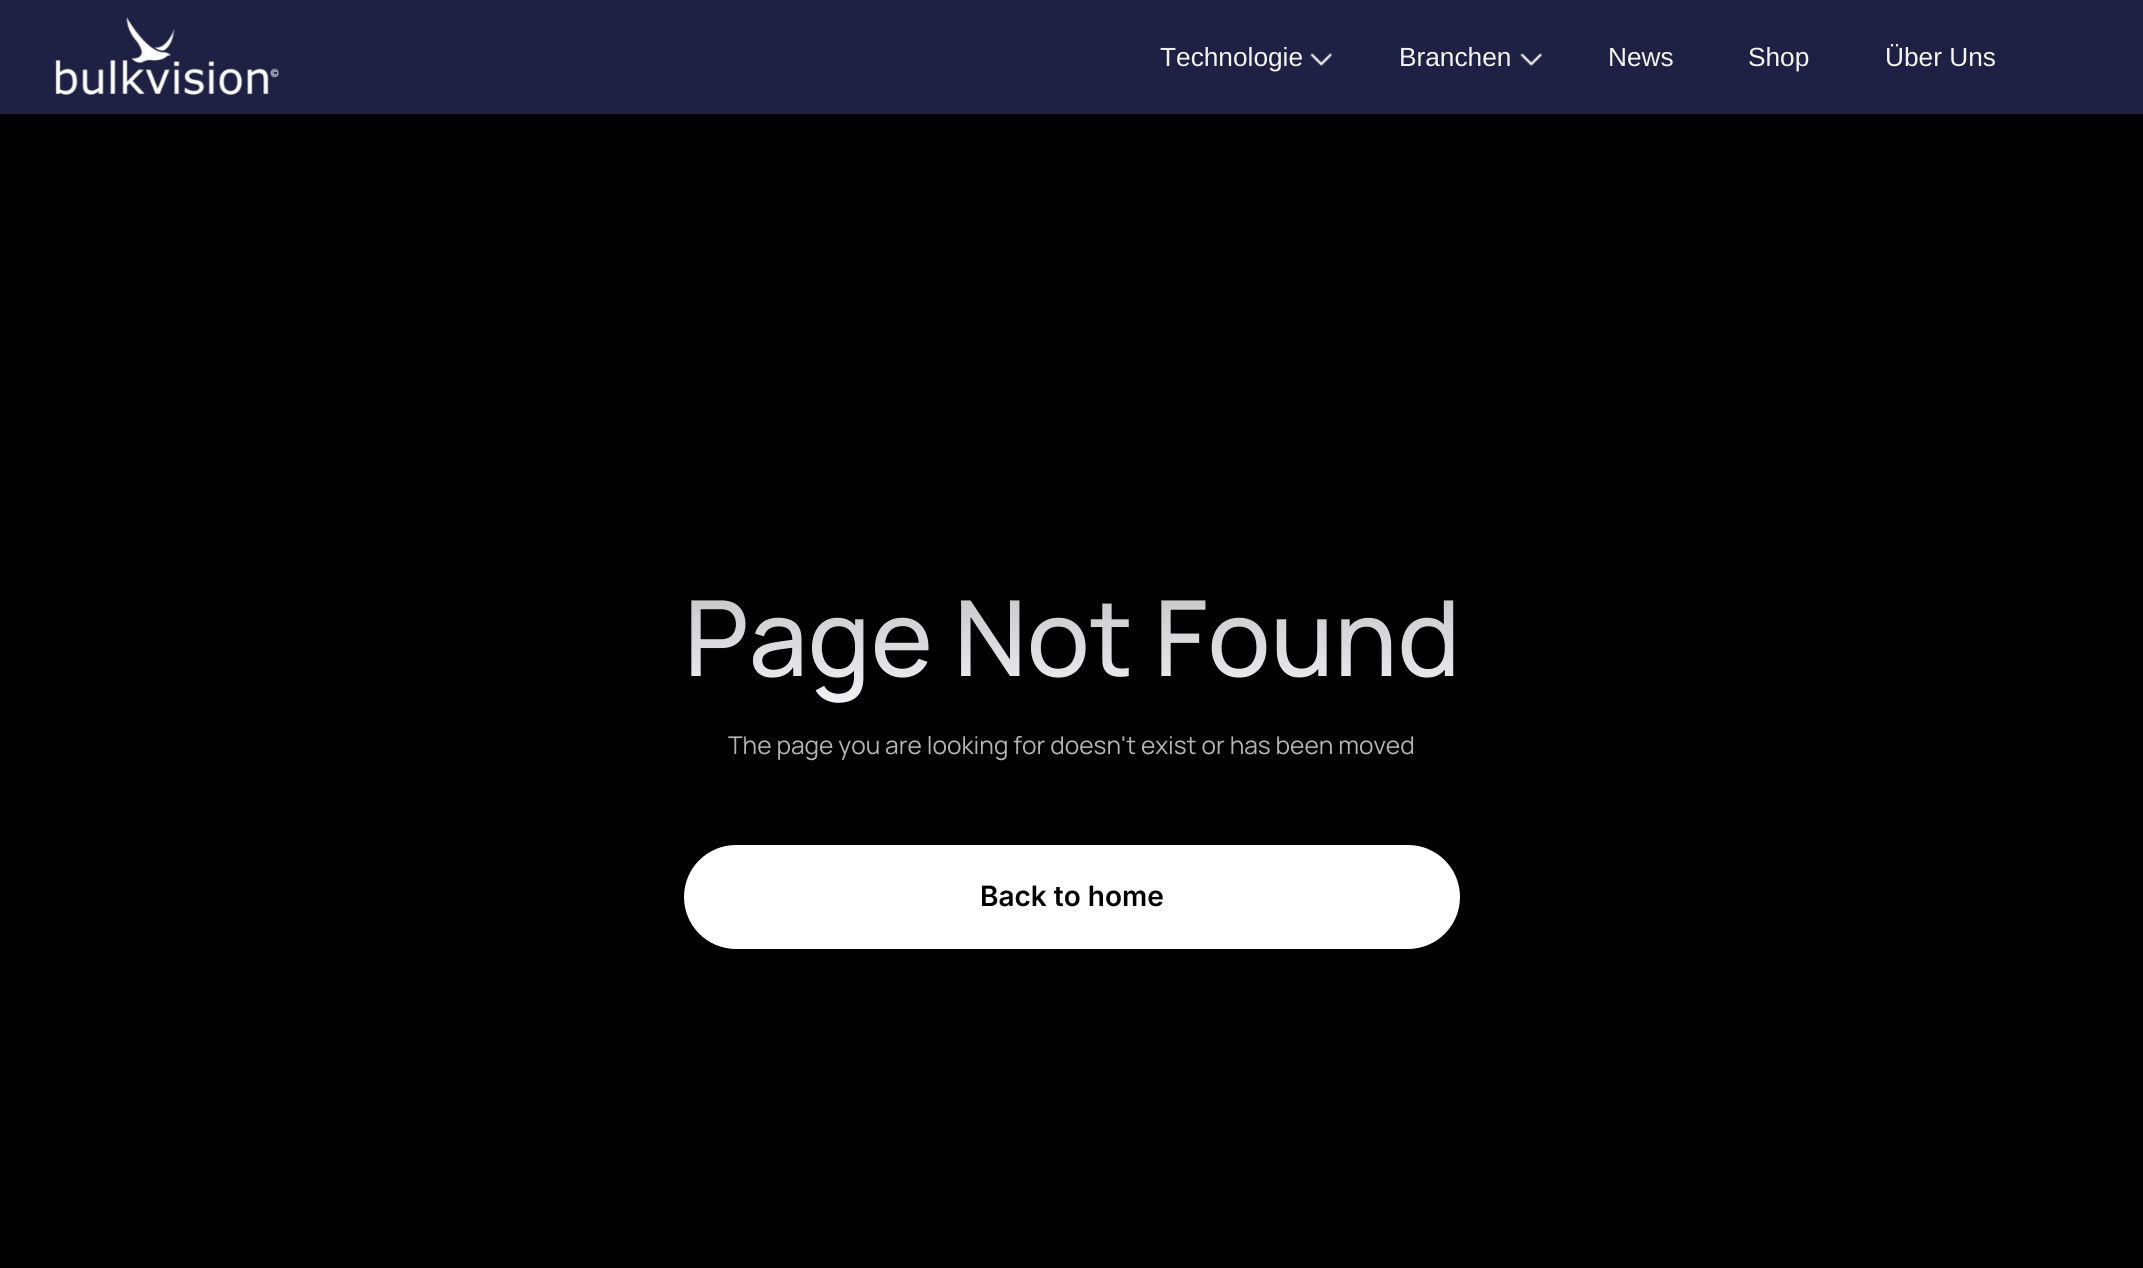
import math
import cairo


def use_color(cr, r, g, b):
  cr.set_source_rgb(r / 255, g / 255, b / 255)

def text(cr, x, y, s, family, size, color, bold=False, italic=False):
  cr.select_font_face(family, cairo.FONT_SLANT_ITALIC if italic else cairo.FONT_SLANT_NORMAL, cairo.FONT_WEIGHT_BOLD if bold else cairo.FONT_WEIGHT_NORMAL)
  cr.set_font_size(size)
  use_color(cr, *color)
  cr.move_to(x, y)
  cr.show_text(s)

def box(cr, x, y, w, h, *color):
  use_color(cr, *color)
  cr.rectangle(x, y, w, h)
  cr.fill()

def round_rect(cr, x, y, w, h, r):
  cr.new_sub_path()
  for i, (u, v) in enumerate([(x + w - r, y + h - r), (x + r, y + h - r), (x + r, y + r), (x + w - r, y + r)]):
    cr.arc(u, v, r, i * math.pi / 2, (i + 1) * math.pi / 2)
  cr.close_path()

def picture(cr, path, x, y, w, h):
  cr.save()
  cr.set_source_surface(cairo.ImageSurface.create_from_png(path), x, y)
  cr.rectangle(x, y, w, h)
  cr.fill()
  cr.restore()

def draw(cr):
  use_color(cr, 0, 0, 0)
  cr.paint()
  box(cr, 0, 0, 2143, 114, 30, 33, 67)
  picture(cr, "img_01.png", 55, 17, 225, 78)
  picture(cr, "img_02.png", 1310, 53, 22, 14)
  picture(cr, "img_03.png", 1520, 53, 22, 14)
  use_color(cr, 255, 255, 255)
  round_rect(cr, 684, 845, 776, 104, 52)
  cr.fill()
  text(cr, 1160, 66, "Technologie", "Liberation Sans", 26.25, (244, 244, 242))
  text(cr, 1399, 66, "Branchen", "Liberation Sans", 26.25, (244, 244, 242))
  text(cr, 1608, 66, "News", "Liberation Sans", 26.25, (244, 244, 242))
  text(cr, 1748, 66, "Shop", "Liberation Sans", 26.25, (244, 244, 242))
  text(cr, 1885, 66, "Über Uns", "Liberation Sans", 26.25, (244, 244, 242))
  cr.select_font_face("Manrope Medium")
  cr.set_font_size(105)
  gradient = cairo.LinearGradient(1072, 714, 1072, 557)
  gradient.add_color_stop_rgba(0, 0.961, 0.961, 0.973, 1)
  gradient.add_color_stop_rgba(1, 0.733, 0.733, 0.741, 1)
  cr.set_source(gradient)
  cr.move_to(684, 676)
  cr.show_text("Page Not Found")
  text(cr, 728, 754, "The page you are looking for doesn't exist or has been moved", "Manrope", 24.5, (180, 180, 180))
  text(cr, 980, 906, "Back to home", "Inter SemiBold", 28, (0, 0, 0))


surface = cairo.ImageSurface(cairo.FORMAT_RGB24, 2143, 1268)
cr = cairo.Context(surface)
options = cairo.FontOptions()
options.set_hint_metrics(cairo.HINT_METRICS_OFF)
options.set_hint_style(cairo.HINT_STYLE_NONE)
cr.set_font_options(options)
cr.set_miter_limit(4)
draw(cr)
surface.write_to_png("out.png")
